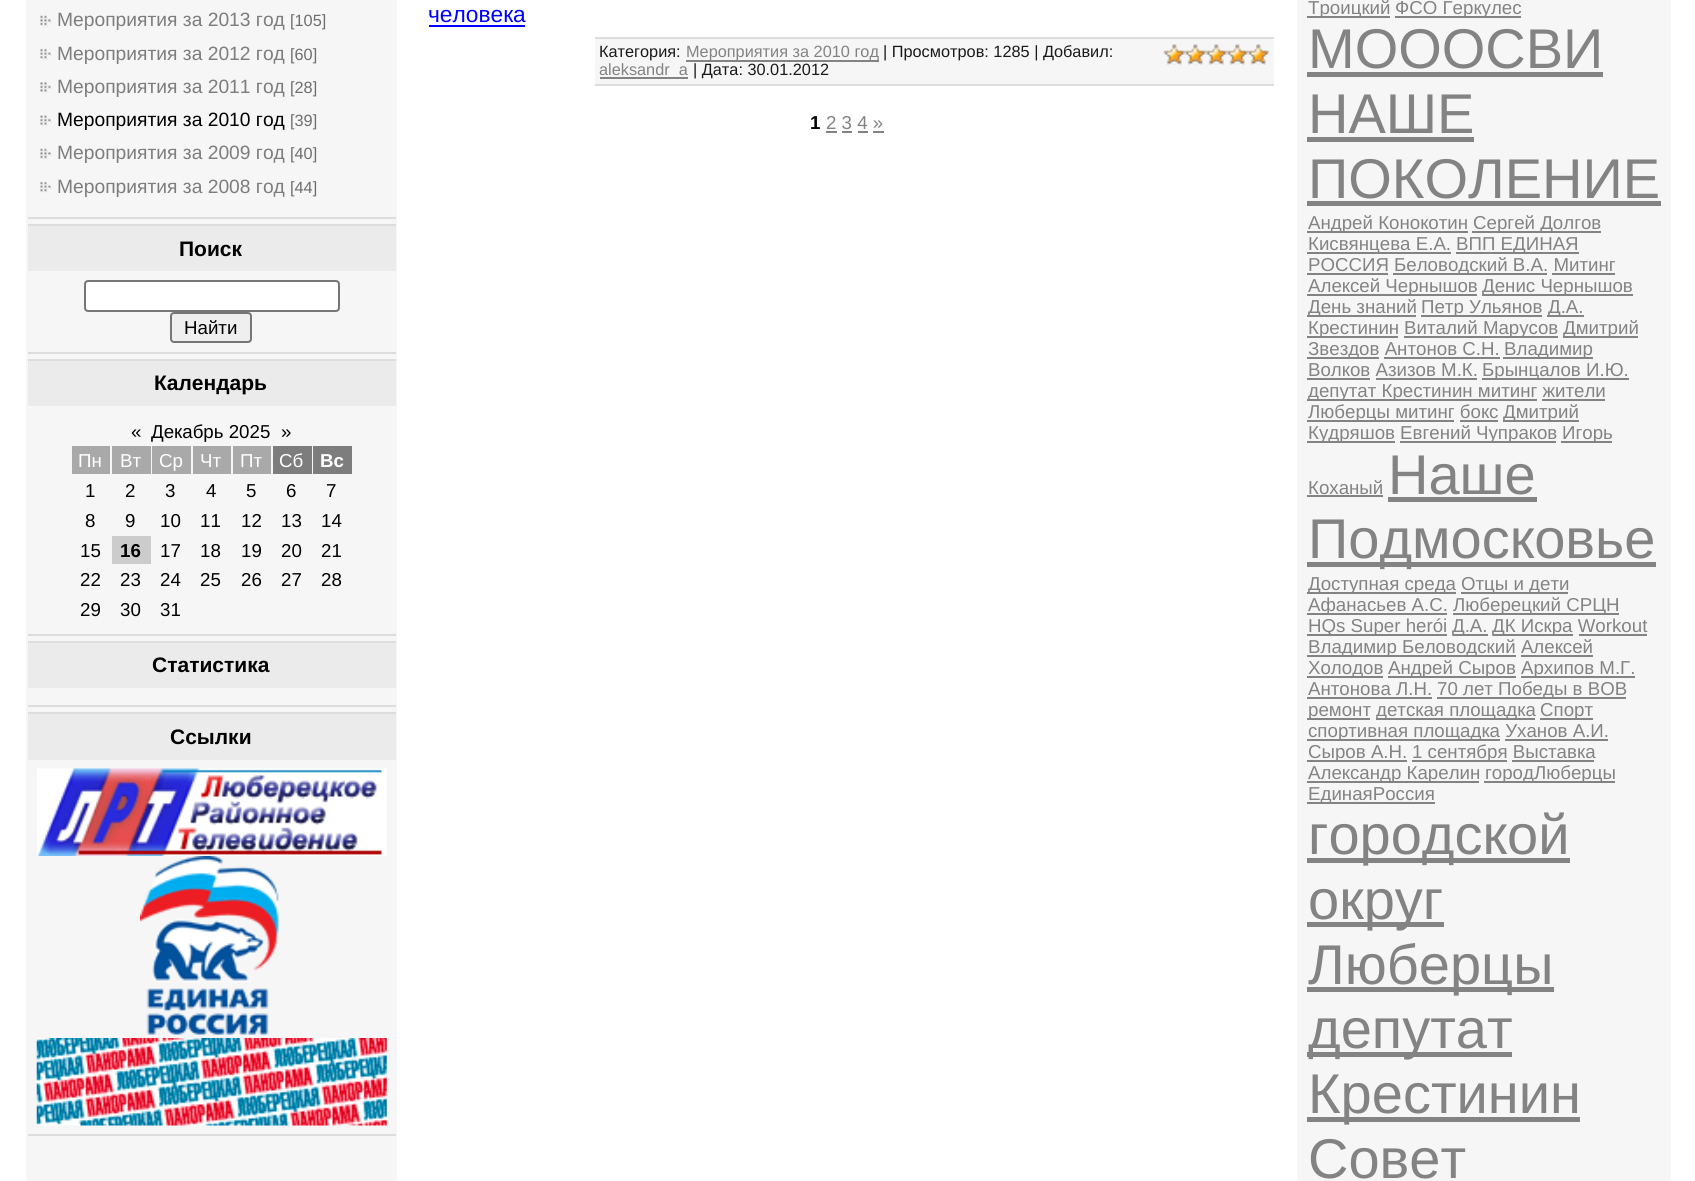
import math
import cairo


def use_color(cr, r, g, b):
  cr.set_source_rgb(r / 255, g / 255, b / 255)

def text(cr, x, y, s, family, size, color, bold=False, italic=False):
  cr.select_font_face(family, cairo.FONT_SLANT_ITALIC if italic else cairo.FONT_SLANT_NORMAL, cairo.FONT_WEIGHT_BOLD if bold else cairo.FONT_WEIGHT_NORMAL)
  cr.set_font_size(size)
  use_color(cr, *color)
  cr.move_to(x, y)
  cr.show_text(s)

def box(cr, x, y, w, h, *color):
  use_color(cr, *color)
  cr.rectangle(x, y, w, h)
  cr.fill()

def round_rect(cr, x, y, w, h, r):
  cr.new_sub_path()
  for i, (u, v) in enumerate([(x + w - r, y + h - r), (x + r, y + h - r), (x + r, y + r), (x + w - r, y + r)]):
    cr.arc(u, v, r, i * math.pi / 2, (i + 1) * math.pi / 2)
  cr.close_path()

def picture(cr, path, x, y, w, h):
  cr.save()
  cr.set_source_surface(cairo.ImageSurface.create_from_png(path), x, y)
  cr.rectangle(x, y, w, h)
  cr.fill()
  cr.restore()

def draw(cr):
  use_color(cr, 255, 255, 255)
  cr.paint()
  box(cr, 26, 0, 371, 1181, 246, 246, 246)
  box(cr, 28, 217, 368, 2, 221, 221, 221)
  picture(cr, "img_01.png", 40, 15, 12, 12)
  picture(cr, "img_02.png", 40, 48, 13, 12)
  picture(cr, "img_03.png", 40, 82, 13, 11)
  picture(cr, "img_04.png", 40, 115, 12, 11)
  picture(cr, "img_01.png", 40, 148, 12, 12)
  picture(cr, "img_02.png", 40, 181, 13, 12)
  box(cr, 28, 224, 368, 2, 221, 221, 221)
  box(cr, 28, 352, 368, 2, 221, 221, 221)
  box(cr, 28, 226, 368, 45, 235, 235, 235)
  use_color(cr, 255, 255, 255)
  round_rect(cr, 85, 281, 254, 30, 3)
  cr.fill_preserve()
  use_color(cr, 118, 118, 118)
  cr.stroke()
  use_color(cr, 239, 239, 239)
  round_rect(cr, 171, 313, 80, 29, 3)
  cr.fill_preserve()
  use_color(cr, 118, 118, 118)
  cr.stroke()
  box(cr, 28, 359, 368, 2, 221, 221, 221)
  box(cr, 28, 634, 368, 2, 221, 221, 221)
  box(cr, 28, 361, 368, 45, 235, 235, 235)
  box(cr, 72, 446, 38, 28, 169, 169, 169)
  box(cr, 112, 446, 39, 28, 169, 169, 169)
  box(cr, 152, 446, 39, 28, 169, 169, 169)
  box(cr, 193, 446, 38, 28, 169, 169, 169)
  box(cr, 233, 446, 38, 28, 169, 169, 169)
  box(cr, 273, 446, 39, 28, 125, 125, 125)
  box(cr, 313, 446, 39, 28, 125, 125, 125)
  box(cr, 112, 536, 39, 28, 204, 204, 204)
  box(cr, 28, 641, 368, 2, 221, 221, 221)
  box(cr, 28, 705, 368, 2, 221, 221, 221)
  box(cr, 28, 643, 368, 45, 235, 235, 235)
  box(cr, 28, 712, 368, 2, 221, 221, 221)
  box(cr, 28, 1134, 368, 2, 221, 221, 221)
  box(cr, 28, 714, 368, 46, 235, 235, 235)
  picture(cr, "img_05.png", 37, 768, 350, 88)
  picture(cr, "img_06.png", 140, 856, 139, 179)
  picture(cr, "img_07.png", 36, 1038, 351, 88)
  box(cr, 429, 25, 96, 2, 0, 0, 255)
  box(cr, 595, 39, 679, 45, 246, 246, 246)
  box(cr, 595, 37, 679, 2, 221, 221, 221)
  box(cr, 595, 84, 679, 2, 221, 221, 221)
  box(cr, 686, 60, 193, 2, 131, 131, 131)
  picture(cr, "img_08.png", 1163, 44, 106, 21)
  picture(cr, "img_09.png", 1163, 44, 106, 21)
  box(cr, 600, 77, 88, 2, 131, 131, 131)
  box(cr, 826, 131, 11, 2, 131, 131, 131)
  box(cr, 842, 131, 10, 2, 131, 131, 131)
  box(cr, 858, 131, 10, 2, 131, 131, 131)
  box(cr, 873, 131, 11, 2, 131, 131, 131)
  box(cr, 1297, 0, 374, 1181, 246, 246, 246)
  box(cr, 1307, 16, 83, 2, 131, 131, 131)
  box(cr, 1395, 16, 126, 2, 131, 131, 131)
  box(cr, 1307, 72, 296, 5, 131, 131, 131)
  box(cr, 1307, 137, 167, 5, 131, 131, 131)
  box(cr, 1307, 201, 354, 5, 131, 131, 131)
  box(cr, 1307, 231, 161, 2, 131, 131, 131)
  box(cr, 1472, 231, 129, 2, 131, 131, 131)
  box(cr, 1307, 252, 144, 2, 131, 131, 131)
  box(cr, 1456, 252, 123, 2, 131, 131, 131)
  box(cr, 1307, 273, 81, 2, 131, 131, 131)
  box(cr, 1393, 273, 154, 2, 131, 131, 131)
  box(cr, 1552, 273, 63, 2, 131, 131, 131)
  box(cr, 1307, 294, 170, 2, 131, 131, 131)
  box(cr, 1482, 294, 151, 2, 131, 131, 131)
  box(cr, 1307, 315, 109, 2, 131, 131, 131)
  box(cr, 1421, 315, 121, 2, 131, 131, 131)
  box(cr, 1547, 315, 37, 2, 131, 131, 131)
  box(cr, 1307, 336, 91, 2, 131, 131, 131)
  box(cr, 1404, 336, 154, 2, 131, 131, 131)
  box(cr, 1563, 336, 75, 2, 131, 131, 131)
  box(cr, 1307, 357, 72, 2, 131, 131, 131)
  box(cr, 1384, 357, 116, 2, 131, 131, 131)
  box(cr, 1503, 357, 90, 2, 131, 131, 131)
  box(cr, 1307, 378, 63, 2, 131, 131, 131)
  box(cr, 1376, 378, 101, 2, 131, 131, 131)
  box(cr, 1482, 378, 147, 2, 131, 131, 131)
  box(cr, 1307, 399, 230, 2, 131, 131, 131)
  box(cr, 1542, 399, 63, 2, 131, 131, 131)
  box(cr, 1307, 420, 147, 2, 131, 131, 131)
  box(cr, 1460, 420, 38, 2, 131, 131, 131)
  box(cr, 1503, 420, 76, 2, 131, 131, 131)
  box(cr, 1307, 441, 88, 2, 131, 131, 131)
  box(cr, 1400, 441, 156, 2, 131, 131, 131)
  box(cr, 1561, 441, 51, 2, 131, 131, 131)
  box(cr, 1307, 495, 76, 2, 131, 131, 131)
  box(cr, 1388, 497, 149, 5, 131, 131, 131)
  box(cr, 1307, 562, 349, 5, 131, 131, 131)
  box(cr, 1307, 592, 149, 2, 131, 131, 131)
  box(cr, 1461, 592, 107, 2, 131, 131, 131)
  box(cr, 1307, 613, 140, 2, 131, 131, 131)
  box(cr, 1453, 613, 166, 2, 131, 131, 131)
  box(cr, 1307, 634, 140, 2, 131, 131, 131)
  box(cr, 1453, 634, 35, 2, 131, 131, 131)
  box(cr, 1493, 634, 80, 2, 131, 131, 131)
  box(cr, 1579, 634, 68, 2, 131, 131, 131)
  box(cr, 1307, 655, 209, 2, 131, 131, 131)
  box(cr, 1521, 655, 72, 2, 131, 131, 131)
  box(cr, 1307, 676, 76, 2, 131, 131, 131)
  box(cr, 1388, 676, 128, 2, 131, 131, 131)
  box(cr, 1521, 676, 114, 2, 131, 131, 131)
  box(cr, 1307, 697, 125, 2, 131, 131, 131)
  box(cr, 1437, 697, 189, 2, 131, 131, 131)
  box(cr, 1307, 718, 63, 2, 131, 131, 131)
  box(cr, 1376, 718, 159, 2, 131, 131, 131)
  box(cr, 1540, 718, 53, 2, 131, 131, 131)
  box(cr, 1307, 739, 193, 2, 131, 131, 131)
  box(cr, 1505, 739, 103, 2, 131, 131, 131)
  box(cr, 1307, 760, 100, 2, 131, 131, 131)
  box(cr, 1412, 760, 95, 2, 131, 131, 131)
  box(cr, 1512, 760, 82, 2, 131, 131, 131)
  box(cr, 1307, 781, 172, 2, 131, 131, 131)
  box(cr, 1484, 781, 131, 2, 131, 131, 131)
  box(cr, 1307, 802, 128, 2, 131, 131, 131)
  box(cr, 1307, 858, 263, 5, 131, 131, 131)
  box(cr, 1307, 922, 137, 5, 131, 131, 131)
  box(cr, 1307, 987, 247, 5, 131, 131, 131)
  box(cr, 1307, 1052, 205, 5, 131, 131, 131)
  box(cr, 1307, 1117, 273, 5, 131, 131, 131)
  text(cr, 57, 26, "Мероприятия за 2013 год", "Liberation Sans", 19.25, (125, 125, 125))
  text(cr, 290, 26, "[105]", "Liberation Sans", 16.3, (110, 110, 110))
  text(cr, 57, 60, "Мероприятия за 2012 год", "Liberation Sans", 19.25, (125, 125, 125))
  text(cr, 290, 60, "[60]", "Liberation Sans", 16.3, (110, 110, 110))
  text(cr, 57, 93, "Мероприятия за 2011 год", "Liberation Sans", 19.25, (125, 125, 125))
  text(cr, 290, 93, "[28]", "Liberation Sans", 16.3, (110, 110, 110))
  text(cr, 57, 126, "Мероприятия за 2010 год", "Liberation Sans", 19.25, (0, 0, 0))
  text(cr, 290, 126, "[39]", "Liberation Sans", 16.3, (110, 110, 110))
  text(cr, 57, 159, "Мероприятия за 2009 год", "Liberation Sans", 19.25, (125, 125, 125))
  text(cr, 290, 159, "[40]", "Liberation Sans", 16.3, (110, 110, 110))
  text(cr, 57, 193, "Мероприятия за 2008 год", "Liberation Sans", 19.25, (125, 125, 125))
  text(cr, 290, 193, "[44]", "Liberation Sans", 16.3, (110, 110, 110))
  text(cr, 179, 256, "Поиск", "Liberation Sans", 21, (0, 0, 0), bold=True)
  text(cr, 184, 334, "Найти", "Liberation Sans", 18.7, (0, 0, 0))
  text(cr, 154, 390, "Календарь", "Liberation Sans", 21, (0, 0, 0), bold=True)
  text(cr, 131, 438, "«", "Liberation Sans", 18.7, (0, 0, 0))
  text(cr, 151, 438, "Декабрь 2025", "Liberation Sans", 18.7, (0, 0, 0))
  text(cr, 281, 438, "»", "Liberation Sans", 18.7, (0, 0, 0))
  text(cr, 78, 467, "Пн", "Liberation Sans", 18.7, (255, 255, 255))
  text(cr, 120, 467, "Вт", "Liberation Sans", 18.7, (255, 255, 255))
  text(cr, 159, 467, "Ср", "Liberation Sans", 18.7, (255, 255, 255))
  text(cr, 200, 467, "Чт", "Liberation Sans", 18.7, (255, 255, 255))
  text(cr, 240, 467, "Пт", "Liberation Sans", 18.7, (255, 255, 255))
  text(cr, 279, 467, "Сб", "Liberation Sans", 18.7, (255, 255, 255))
  text(cr, 320, 467, "Вс", "Liberation Sans", 18.7, (255, 255, 255), bold=True)
  text(cr, 85, 497, "1", "Liberation Sans", 18.7, (0, 0, 0))
  text(cr, 125, 497, "2", "Liberation Sans", 18.7, (0, 0, 0))
  text(cr, 165, 497, "3", "Liberation Sans", 18.7, (0, 0, 0))
  text(cr, 206, 497, "4", "Liberation Sans", 18.7, (0, 0, 0))
  text(cr, 246, 497, "5", "Liberation Sans", 18.7, (0, 0, 0))
  text(cr, 286, 497, "6", "Liberation Sans", 18.7, (0, 0, 0))
  text(cr, 326, 497, "7", "Liberation Sans", 18.7, (0, 0, 0))
  text(cr, 85, 527, "8", "Liberation Sans", 18.7, (0, 0, 0))
  text(cr, 125, 527, "9", "Liberation Sans", 18.7, (0, 0, 0))
  text(cr, 160, 527, "10", "Liberation Sans", 18.7, (0, 0, 0))
  text(cr, 200, 527, "11", "Liberation Sans", 18.7, (0, 0, 0))
  text(cr, 241, 527, "12", "Liberation Sans", 18.7, (0, 0, 0))
  text(cr, 281, 527, "13", "Liberation Sans", 18.7, (0, 0, 0))
  text(cr, 321, 527, "14", "Liberation Sans", 18.7, (0, 0, 0))
  text(cr, 80, 557, "15", "Liberation Sans", 18.7, (0, 0, 0))
  text(cr, 120, 557, "16", "Liberation Sans", 18.7, (0, 0, 0), bold=True)
  text(cr, 160, 557, "17", "Liberation Sans", 18.7, (0, 0, 0))
  text(cr, 200, 557, "18", "Liberation Sans", 18.7, (0, 0, 0))
  text(cr, 241, 557, "19", "Liberation Sans", 18.7, (0, 0, 0))
  text(cr, 281, 557, "20", "Liberation Sans", 18.7, (0, 0, 0))
  text(cr, 321, 557, "21", "Liberation Sans", 18.7, (0, 0, 0))
  text(cr, 80, 586, "22", "Liberation Sans", 18.7, (0, 0, 0))
  text(cr, 120, 586, "23", "Liberation Sans", 18.7, (0, 0, 0))
  text(cr, 160, 586, "24", "Liberation Sans", 18.7, (0, 0, 0))
  text(cr, 200, 586, "25", "Liberation Sans", 18.7, (0, 0, 0))
  text(cr, 241, 586, "26", "Liberation Sans", 18.7, (0, 0, 0))
  text(cr, 281, 586, "27", "Liberation Sans", 18.7, (0, 0, 0))
  text(cr, 321, 586, "28", "Liberation Sans", 18.7, (0, 0, 0))
  text(cr, 80, 616, "29", "Liberation Sans", 18.7, (0, 0, 0))
  text(cr, 120, 616, "30", "Liberation Sans", 18.7, (0, 0, 0))
  text(cr, 160, 616, "31", "Liberation Sans", 18.7, (0, 0, 0))
  text(cr, 152, 672, "Статистика", "Liberation Sans", 21, (0, 0, 0), bold=True)
  text(cr, 170, 744, "Ссылки", "Liberation Sans", 21, (0, 0, 0), bold=True)
  text(cr, 428, 22, "человека", "Liberation Sans", 22.75, (0, 0, 255))
  text(cr, 599, 57, "Категория:", "Liberation Sans", 16.3, (26, 26, 26))
  text(cr, 686, 57, "Мероприятия за 2010 год", "Liberation Sans", 16.3, (131, 131, 131))
  text(cr, 883, 57, "| Просмотров: 1285 | Добавил:", "Liberation Sans", 16.3, (26, 26, 26))
  text(cr, 599, 75, "aleksandr_a", "Liberation Sans", 16.3, (131, 131, 131))
  text(cr, 693, 75, "| Дата: 30.01.2012", "Liberation Sans", 16.3, (26, 26, 26))
  text(cr, 810, 129, "1", "Liberation Sans", 18.7, (0, 0, 0), bold=True)
  text(cr, 826, 129, "2 3 4 »", "Liberation Sans", 18.7, (131, 131, 131))
  text(cr, 1308, 14, "Троицкий", "Liberation Sans", 18.7, (131, 131, 131))
  text(cr, 1395, 14, "ФСО Геркулес", "Liberation Sans", 18.7, (131, 131, 131))
  text(cr, 1308, 68, "МОООСВИ", "Liberation Sans", 56, (131, 131, 131))
  text(cr, 1308, 133, "НАШЕ", "Liberation Sans", 56, (131, 131, 131))
  text(cr, 1308, 198, "ПОКОЛЕНИЕ", "Liberation Sans", 56, (131, 131, 131))
  text(cr, 1308, 229, "Андрей Конокотин", "Liberation Sans", 18.7, (131, 131, 131))
  text(cr, 1473, 229, "Сергей Долгов", "Liberation Sans", 18.7, (131, 131, 131))
  text(cr, 1308, 250, "Кисвянцева Е.А.", "Liberation Sans", 18.7, (131, 131, 131))
  text(cr, 1456, 250, "ВПП ЕДИНАЯ", "Liberation Sans", 18.7, (131, 131, 131))
  text(cr, 1308, 271, "РОССИЯ", "Liberation Sans", 18.7, (131, 131, 131))
  text(cr, 1394, 271, "Беловодский В.А. Митинг", "Liberation Sans", 18.7, (131, 131, 131))
  text(cr, 1308, 292, "Алексей Чернышов", "Liberation Sans", 18.7, (131, 131, 131))
  text(cr, 1482, 292, "Денис Чернышов", "Liberation Sans", 18.7, (131, 131, 131))
  text(cr, 1308, 313, "День знаний", "Liberation Sans", 18.7, (131, 131, 131))
  text(cr, 1421, 313, "Петр Ульянов", "Liberation Sans", 18.7, (131, 131, 131))
  text(cr, 1548, 313, "Д.А.", "Liberation Sans", 18.7, (131, 131, 131))
  text(cr, 1308, 334, "Крестинин", "Liberation Sans", 18.7, (131, 131, 131))
  text(cr, 1404, 334, "Виталий Марусов", "Liberation Sans", 18.7, (131, 131, 131))
  text(cr, 1563, 334, "Дмитрий", "Liberation Sans", 18.7, (131, 131, 131))
  text(cr, 1308, 355, "Звездов Антонов С.Н.", "Liberation Sans", 18.7, (131, 131, 131))
  text(cr, 1504, 355, "Владимир", "Liberation Sans", 18.7, (131, 131, 131))
  text(cr, 1308, 376, "Волков Азизов М.К.", "Liberation Sans", 18.7, (131, 131, 131))
  text(cr, 1482, 376, "Брынцалов И.Ю.", "Liberation Sans", 18.7, (131, 131, 131))
  text(cr, 1308, 397, "депутат Крестинин митинг жители", "Liberation Sans", 18.7, (131, 131, 131))
  text(cr, 1308, 418, "Люберцы митинг бокс", "Liberation Sans", 18.7, (131, 131, 131))
  text(cr, 1503, 418, "Дмитрий", "Liberation Sans", 18.7, (131, 131, 131))
  text(cr, 1308, 439, "Кудряшов", "Liberation Sans", 18.7, (131, 131, 131))
  text(cr, 1400, 439, "Евгений Чупраков", "Liberation Sans", 18.7, (131, 131, 131))
  text(cr, 1562, 439, "Игорь", "Liberation Sans", 18.7, (131, 131, 131))
  text(cr, 1308, 494, "Коханый", "Liberation Sans", 18.7, (131, 131, 131))
  text(cr, 1388, 494, "Наше", "Liberation Sans", 56, (131, 131, 131))
  text(cr, 1308, 558, "Подмосковье", "Liberation Sans", 56, (131, 131, 131))
  text(cr, 1308, 590, "Доступная среда", "Liberation Sans", 18.7, (131, 131, 131))
  text(cr, 1461, 590, "Отцы и дети", "Liberation Sans", 18.7, (131, 131, 131))
  text(cr, 1308, 611, "Афанасьев А.С.", "Liberation Sans", 18.7, (131, 131, 131))
  text(cr, 1453, 611, "Люберецкий СРЦН", "Liberation Sans", 18.7, (131, 131, 131))
  text(cr, 1308, 632, "HQs Super herói", "Liberation Sans", 18.7, (131, 131, 131))
  text(cr, 1452, 632, "Д.А.", "Liberation Sans", 18.7, (131, 131, 131))
  text(cr, 1492, 632, "ДК Искра Workout", "Liberation Sans", 18.7, (131, 131, 131))
  text(cr, 1308, 653, "Владимир Беловодский Алексей", "Liberation Sans", 18.7, (131, 131, 131))
  text(cr, 1308, 674, "Холодов", "Liberation Sans", 18.7, (131, 131, 131))
  text(cr, 1388, 674, "Андрей Сыров", "Liberation Sans", 18.7, (131, 131, 131))
  text(cr, 1521, 674, "Архипов М.Г.", "Liberation Sans", 18.7, (131, 131, 131))
  text(cr, 1308, 695, "Антонова Л.Н.", "Liberation Sans", 18.7, (131, 131, 131))
  text(cr, 1437, 695, "70 лет Победы в ВОВ", "Liberation Sans", 18.7, (131, 131, 131))
  text(cr, 1308, 716, "ремонт", "Liberation Sans", 18.7, (131, 131, 131))
  text(cr, 1376, 716, "детская площадка", "Liberation Sans", 18.7, (131, 131, 131))
  text(cr, 1540, 716, "Спорт", "Liberation Sans", 18.7, (131, 131, 131))
  text(cr, 1308, 737, "спортивная площадка Уханов А.И.", "Liberation Sans", 18.7, (131, 131, 131))
  text(cr, 1308, 758, "Сыров А.Н.", "Liberation Sans", 18.7, (131, 131, 131))
  text(cr, 1412, 758, "1 сентября Выставка", "Liberation Sans", 18.7, (131, 131, 131))
  text(cr, 1308, 779, "Александр Карелин", "Liberation Sans", 18.7, (131, 131, 131))
  text(cr, 1485, 779, "городЛюберцы", "Liberation Sans", 18.7, (131, 131, 131))
  text(cr, 1308, 800, "ЕдинаяРоссия", "Liberation Sans", 18.7, (131, 131, 131))
  text(cr, 1308, 854, "городской", "Liberation Sans", 56, (131, 131, 131))
  text(cr, 1308, 919, "округ", "Liberation Sans", 56, (131, 131, 131))
  text(cr, 1308, 984, "Люберцы", "Liberation Sans", 56, (131, 131, 131))
  text(cr, 1308, 1048, "депутат", "Liberation Sans", 56, (131, 131, 131))
  text(cr, 1308, 1113, "Крестинин", "Liberation Sans", 56, (131, 131, 131))
  text(cr, 1308, 1178, "Совет", "Liberation Sans", 56, (131, 131, 131))


surface = cairo.ImageSurface(cairo.FORMAT_RGB24, 1695, 1181)
cr = cairo.Context(surface)
options = cairo.FontOptions()
options.set_hint_metrics(cairo.HINT_METRICS_OFF)
options.set_hint_style(cairo.HINT_STYLE_NONE)
cr.set_font_options(options)
cr.set_miter_limit(4)
draw(cr)
surface.write_to_png("out.png")
